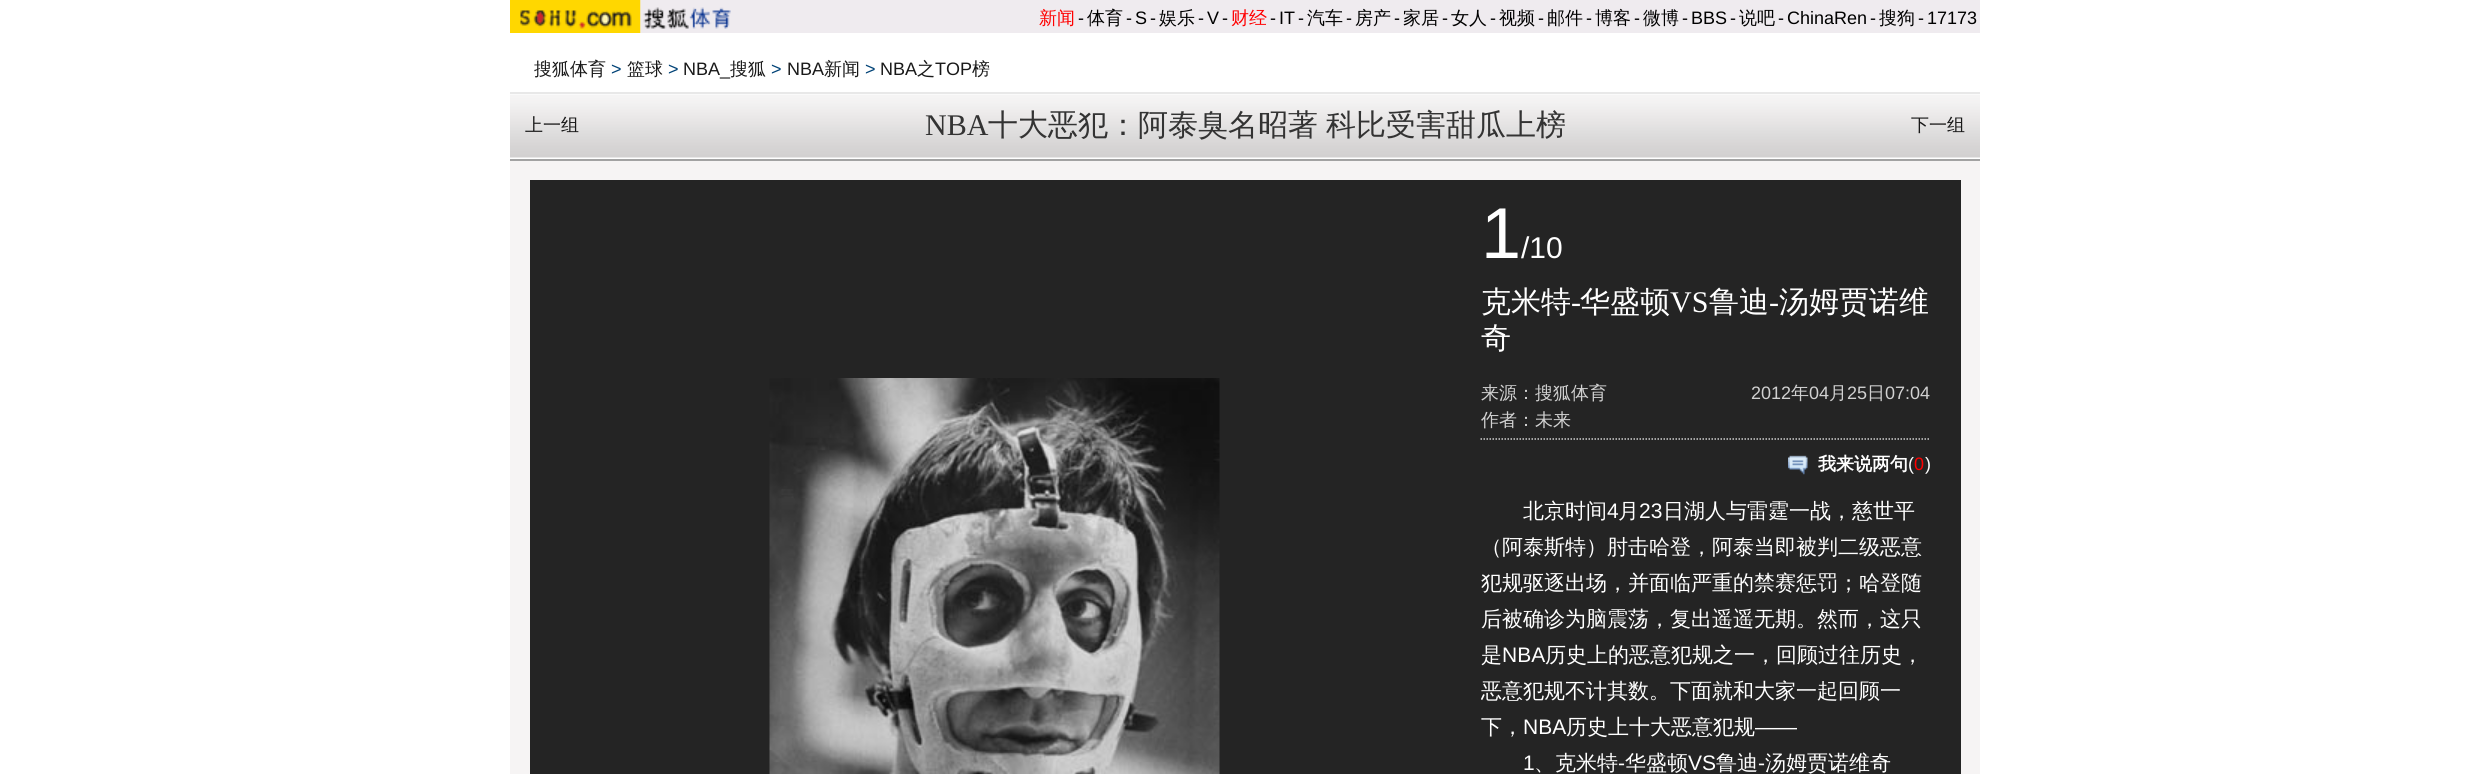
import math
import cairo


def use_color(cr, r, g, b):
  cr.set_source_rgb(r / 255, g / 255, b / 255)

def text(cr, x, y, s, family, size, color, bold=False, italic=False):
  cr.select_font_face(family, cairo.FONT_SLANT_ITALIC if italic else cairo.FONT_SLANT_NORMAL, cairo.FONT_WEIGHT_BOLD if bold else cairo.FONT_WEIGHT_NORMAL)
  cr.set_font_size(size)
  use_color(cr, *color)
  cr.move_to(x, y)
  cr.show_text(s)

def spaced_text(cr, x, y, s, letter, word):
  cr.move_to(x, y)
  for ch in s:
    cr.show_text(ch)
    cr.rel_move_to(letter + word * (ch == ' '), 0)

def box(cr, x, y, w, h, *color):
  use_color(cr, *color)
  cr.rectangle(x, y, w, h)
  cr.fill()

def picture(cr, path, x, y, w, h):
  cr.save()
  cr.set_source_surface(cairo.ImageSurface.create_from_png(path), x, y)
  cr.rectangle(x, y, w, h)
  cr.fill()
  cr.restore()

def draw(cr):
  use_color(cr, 255, 255, 255)
  cr.paint()
  box(cr, 640, 0, 1340, 33, 239, 235, 239)
  picture(cr, "img_01.png", 510, 0, 131, 33)
  picture(cr, "img_02.png", 640, 0, 91, 33)
  box(cr, 510, 161, 1470, 613, 246, 244, 244)
  picture(cr, "img_03.png", 510, 94, 1470, 65)
  box(cr, 510, 92, 1470, 2, 232, 232, 232)
  box(cr, 510, 159, 1470, 2, 162, 162, 162)
  box(cr, 530, 180, 1431, 594, 36, 36, 36)
  picture(cr, "img_04.png", 769, 378, 451, 396)
  cr.new_path()
  cr.move_to(1480.5, 439)
  cr.line_to(1930.5, 439)
  use_color(cr, 209, 209, 209)
  cr.set_line_width(1.5)
  cr.set_dash([1.5, 1.5])
  cr.stroke()
  picture(cr, "img_05.png", 1788, 455, 20, 20)
  text(cr, 1039, 24, "新闻", "WenQuanYi Zen Hei Medium", 18, (255, 0, 0))
  text(cr, 1078, 24, "-", "Liberation Sans", 18, (0, 0, 0))
  text(cr, 1087, 24, "体育", "WenQuanYi Zen Hei Medium", 18, (0, 0, 0))
  text(cr, 1126, 24, "-", "Liberation Sans", 18, (0, 0, 0))
  text(cr, 1135, 24, "S", "Liberation Sans", 18, (0, 0, 0))
  text(cr, 1150, 24, "-", "Liberation Sans", 18, (0, 0, 0))
  text(cr, 1159, 24, "娱乐", "WenQuanYi Zen Hei Medium", 18, (0, 0, 0))
  text(cr, 1198, 24, "-", "Liberation Sans", 18, (0, 0, 0))
  text(cr, 1207, 24, "V", "Liberation Sans", 18, (0, 0, 0))
  text(cr, 1222, 24, "-", "Liberation Sans", 18, (0, 0, 0))
  text(cr, 1231, 24, "财经", "WenQuanYi Zen Hei Medium", 18, (255, 0, 0))
  text(cr, 1270, 24, "-", "Liberation Sans", 18, (0, 0, 0))
  text(cr, 1279, 24, "IT", "Liberation Sans", 18, (0, 0, 0))
  text(cr, 1298, 24, "-", "Liberation Sans", 18, (0, 0, 0))
  text(cr, 1307, 24, "汽车", "WenQuanYi Zen Hei Medium", 18, (0, 0, 0))
  text(cr, 1346, 24, "-", "Liberation Sans", 18, (0, 0, 0))
  text(cr, 1355, 24, "房产", "WenQuanYi Zen Hei Medium", 18, (0, 0, 0))
  text(cr, 1394, 24, "-", "Liberation Sans", 18, (0, 0, 0))
  text(cr, 1403, 24, "家居", "WenQuanYi Zen Hei Medium", 18, (0, 0, 0))
  text(cr, 1442, 24, "-", "Liberation Sans", 18, (0, 0, 0))
  text(cr, 1451, 24, "女人", "WenQuanYi Zen Hei Medium", 18, (0, 0, 0))
  text(cr, 1490, 24, "-", "Liberation Sans", 18, (0, 0, 0))
  text(cr, 1499, 24, "视频", "WenQuanYi Zen Hei Medium", 18, (0, 0, 0))
  text(cr, 1538, 24, "-", "Liberation Sans", 18, (0, 0, 0))
  text(cr, 1547, 24, "邮件", "WenQuanYi Zen Hei Medium", 18, (0, 0, 0))
  text(cr, 1586, 24, "-", "Liberation Sans", 18, (0, 0, 0))
  text(cr, 1595, 24, "博客", "WenQuanYi Zen Hei Medium", 18, (0, 0, 0))
  text(cr, 1634, 24, "-", "Liberation Sans", 18, (0, 0, 0))
  text(cr, 1643, 24, "微博", "WenQuanYi Zen Hei Medium", 18, (0, 0, 0))
  text(cr, 1682, 24, "-", "Liberation Sans", 18, (0, 0, 0))
  text(cr, 1691, 24, "BBS", "Liberation Sans", 18, (0, 0, 0))
  text(cr, 1730, 24, "-", "Liberation Sans", 18, (0, 0, 0))
  text(cr, 1739, 24, "说吧", "WenQuanYi Zen Hei Medium", 18, (0, 0, 0))
  text(cr, 1778, 24, "-", "Liberation Sans", 18, (0, 0, 0))
  text(cr, 1787, 24, "ChinaRen", "Liberation Sans", 18, (0, 0, 0))
  text(cr, 1870, 24, "-", "Liberation Sans", 18, (0, 0, 0))
  text(cr, 1879, 24, "搜狗", "WenQuanYi Zen Hei Medium", 18, (0, 0, 0))
  text(cr, 1918, 24, "-", "Liberation Sans", 18, (0, 0, 0))
  text(cr, 1927, 24, "17173", "Liberation Sans", 18, (0, 0, 0))
  text(cr, 534, 75, "搜狐体育", "WenQuanYi Zen Hei Medium", 18, (25, 25, 25))
  text(cr, 611, 75, ">", "Liberation Sans", 18, (0, 66, 118))
  text(cr, 627, 75, "篮球", "WenQuanYi Zen Hei Medium", 18, (25, 25, 25))
  text(cr, 668, 75, ">", "Liberation Sans", 18, (0, 66, 118))
  text(cr, 683, 75, "NBA_", "Liberation Sans", 18, (25, 25, 25))
  text(cr, 730, 75, "搜狐", "WenQuanYi Zen Hei Medium", 18, (25, 25, 25))
  text(cr, 771, 75, ">", "Liberation Sans", 18, (0, 66, 118))
  text(cr, 787, 75, "NBA", "Liberation Sans", 18, (25, 25, 25))
  text(cr, 824, 75, "新闻", "WenQuanYi Zen Hei Medium", 18, (25, 25, 25))
  text(cr, 865, 75, ">", "Liberation Sans", 18, (0, 66, 118))
  text(cr, 880, 75, "NBA", "Liberation Sans", 18, (25, 25, 25))
  text(cr, 917, 75, "之", "WenQuanYi Zen Hei Medium", 18, (25, 25, 25))
  text(cr, 935, 75, "TOP", "Liberation Sans", 18, (25, 25, 25))
  text(cr, 972, 75, "榜", "WenQuanYi Zen Hei Medium", 18, (25, 25, 25))
  text(cr, 925, 135, "NBA", "Liberation Serif", 30, (51, 51, 51))
  cr.select_font_face("WenQuanYi Zen Hei Medium")
  spaced_text(cr, 988, 135, "十大恶犯：阿泰臭名昭著 科比受害甜瓜上榜", 0, -1)
  text(cr, 525, 131, "上一组", "WenQuanYi Zen Hei Medium", 18, (25, 25, 25))
  text(cr, 1911, 131, "下一组", "WenQuanYi Zen Hei Medium", 18, (25, 25, 25))
  text(cr, 1481, 258, "1", "Liberation Sans", 72, (255, 255, 255))
  text(cr, 1521, 258, "/10", "Liberation Sans", 30, (255, 255, 255))
  text(cr, 1481, 312, "克米特", "WenQuanYi Zen Hei Medium", 30, (255, 255, 255))
  text(cr, 1571, 312, "-", "Liberation Serif", 30, (255, 255, 255))
  text(cr, 1580, 312, "华盛顿", "WenQuanYi Zen Hei Medium", 30, (255, 255, 255))
  text(cr, 1670, 312, "VS", "Liberation Serif", 30, (255, 255, 255))
  text(cr, 1709, 312, "鲁迪", "WenQuanYi Zen Hei Medium", 30, (255, 255, 255))
  text(cr, 1769, 312, "-", "Liberation Serif", 30, (255, 255, 255))
  text(cr, 1779, 312, "汤姆贾诺维", "WenQuanYi Zen Hei Medium", 30, (255, 255, 255))
  text(cr, 1481, 348, "奇", "WenQuanYi Zen Hei Medium", 30, (255, 255, 255))
  text(cr, 1481, 399, "来源：搜狐体育", "WenQuanYi Zen Hei Medium", 18, (209, 209, 209))
  text(cr, 1751, 399, "2012", "Liberation Sans", 18, (209, 209, 209))
  text(cr, 1791, 399, "年", "WenQuanYi Zen Hei Medium", 18, (209, 209, 209))
  text(cr, 1809, 399, "04", "Liberation Sans", 18, (209, 209, 209))
  text(cr, 1829, 399, "月", "WenQuanYi Zen Hei Medium", 18, (209, 209, 209))
  text(cr, 1847, 399, "25", "Liberation Sans", 18, (209, 209, 209))
  text(cr, 1867, 399, "日", "WenQuanYi Zen Hei Medium", 18, (209, 209, 209))
  text(cr, 1885, 399, "07:04", "Liberation Sans", 18, (209, 209, 209))
  text(cr, 1481, 426, "作者：未来", "WenQuanYi Zen Hei Medium", 18, (209, 209, 209))
  text(cr, 1818, 470, "我来说两句", "WenQuanYi Zen Hei", 18, (255, 255, 255), bold=True)
  text(cr, 1908, 470, "(", "Liberation Sans", 18, (255, 255, 255))
  text(cr, 1914, 470, "0", "Liberation Sans", 18, (255, 0, 0))
  text(cr, 1925, 470, ")", "Liberation Sans", 18, (255, 255, 255))
  text(cr, 1523, 518, "北京时间", "WenQuanYi Zen Hei Medium", 21, (255, 255, 255))
  text(cr, 1607, 518, "4", "Liberation Sans", 21, (255, 255, 255))
  text(cr, 1618, 518, "月", "WenQuanYi Zen Hei Medium", 21, (255, 255, 255))
  text(cr, 1639, 518, "23", "Liberation Sans", 21, (255, 255, 255))
  text(cr, 1663, 518, "日湖人与雷霆一战，慈世平", "WenQuanYi Zen Hei Medium", 21, (255, 255, 255))
  text(cr, 1481, 554, "（阿泰斯特）肘击哈登，阿泰当即被判二级恶意", "WenQuanYi Zen Hei Medium", 21, (255, 255, 255))
  text(cr, 1481, 590, "犯规驱逐出场，并面临严重的禁赛惩罚；哈登随", "WenQuanYi Zen Hei Medium", 21, (255, 255, 255))
  text(cr, 1481, 626, "后被确诊为脑震荡，复出遥遥无期。然而，这只", "WenQuanYi Zen Hei Medium", 21, (255, 255, 255))
  text(cr, 1481, 662, "是", "WenQuanYi Zen Hei Medium", 21, (255, 255, 255))
  text(cr, 1502, 662, "NBA", "Liberation Sans", 21, (255, 255, 255))
  text(cr, 1545, 662, "历史上的恶意犯规之一，回顾过往历史，", "WenQuanYi Zen Hei Medium", 21, (255, 255, 255))
  cr.save()
  cr.rectangle(1481, 492, 450, 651)
  cr.clip()
  text(cr, 1481, 698, "恶意犯规不计其数。下面就和大家一起回顾一", "WenQuanYi Zen Hei Medium", 21, (255, 255, 255))
  cr.restore()
  text(cr, 1481, 734, "下，", "WenQuanYi Zen Hei Medium", 21, (255, 255, 255))
  text(cr, 1523, 734, "NBA", "Liberation Sans", 21, (255, 255, 255))
  text(cr, 1566, 734, "历史上十大恶意犯规", "WenQuanYi Zen Hei Medium", 21, (255, 255, 255))
  text(cr, 1755, 734, "——", "Liberation Sans", 21, (255, 255, 255))
  text(cr, 1523, 770, "1", "Liberation Sans", 21, (255, 255, 255))
  text(cr, 1534, 770, "、克米特", "WenQuanYi Zen Hei Medium", 21, (255, 255, 255))
  text(cr, 1618, 770, "-", "Liberation Sans", 21, (255, 255, 255))
  text(cr, 1625, 770, "华盛顿", "WenQuanYi Zen Hei Medium", 21, (255, 255, 255))
  text(cr, 1688, 770, "VS", "Liberation Sans", 21, (255, 255, 255))
  text(cr, 1716, 770, "鲁迪", "WenQuanYi Zen Hei Medium", 21, (255, 255, 255))
  text(cr, 1758, 770, "-", "Liberation Sans", 21, (255, 255, 255))
  text(cr, 1765, 770, "汤姆贾诺维奇", "WenQuanYi Zen Hei Medium", 21, (255, 255, 255))


surface = cairo.ImageSurface(cairo.FORMAT_RGB24, 2489, 774)
cr = cairo.Context(surface)
options = cairo.FontOptions()
options.set_hint_metrics(cairo.HINT_METRICS_OFF)
options.set_hint_style(cairo.HINT_STYLE_NONE)
cr.set_font_options(options)
cr.set_miter_limit(4)
draw(cr)
surface.write_to_png("out.png")
